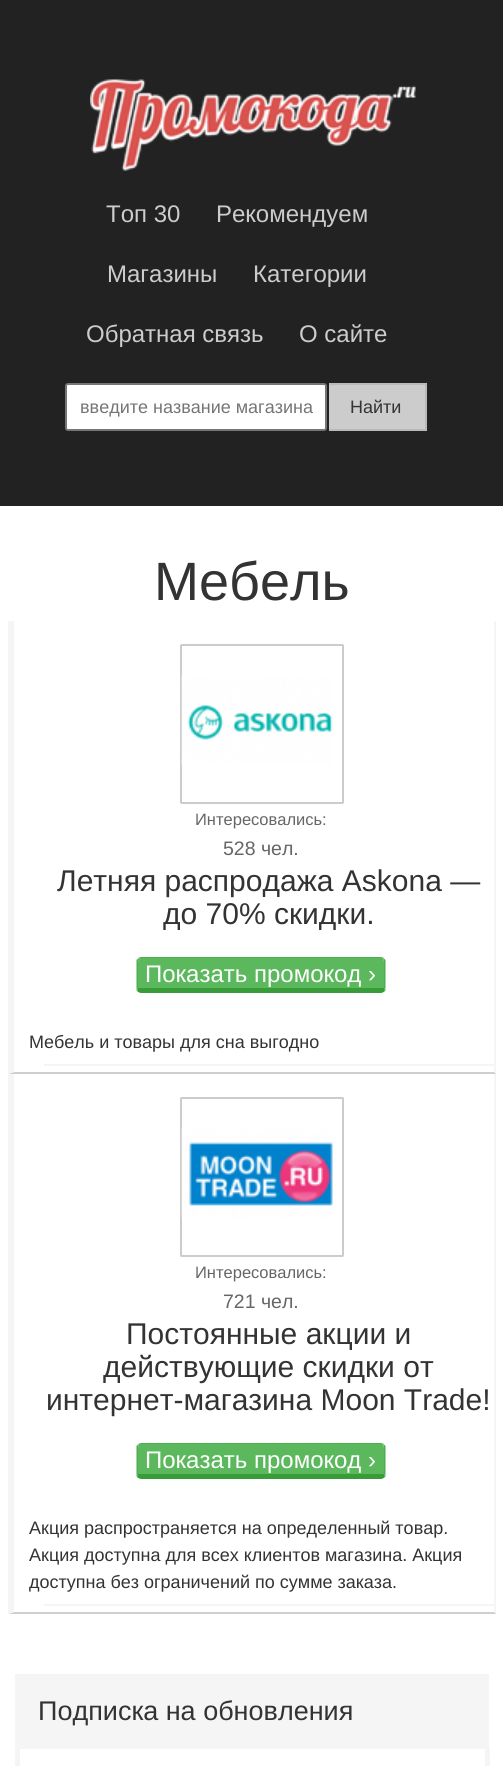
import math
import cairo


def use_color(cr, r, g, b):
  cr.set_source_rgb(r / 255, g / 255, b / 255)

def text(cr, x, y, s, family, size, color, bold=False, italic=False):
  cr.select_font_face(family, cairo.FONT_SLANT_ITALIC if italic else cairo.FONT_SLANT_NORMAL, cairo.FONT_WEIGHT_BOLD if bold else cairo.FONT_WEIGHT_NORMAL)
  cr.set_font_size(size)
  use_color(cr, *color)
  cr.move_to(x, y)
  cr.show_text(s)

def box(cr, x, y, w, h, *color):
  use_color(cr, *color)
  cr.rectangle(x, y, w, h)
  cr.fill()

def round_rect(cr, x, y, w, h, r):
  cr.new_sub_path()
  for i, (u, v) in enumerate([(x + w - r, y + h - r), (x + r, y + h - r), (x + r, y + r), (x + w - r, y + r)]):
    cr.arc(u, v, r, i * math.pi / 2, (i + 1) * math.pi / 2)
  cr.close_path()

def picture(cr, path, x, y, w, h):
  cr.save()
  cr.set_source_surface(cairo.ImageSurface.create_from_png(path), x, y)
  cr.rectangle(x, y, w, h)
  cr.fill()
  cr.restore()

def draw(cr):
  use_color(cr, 34, 34, 34)
  cr.paint()
  picture(cr, "img_01.png", 90, 79, 326, 92)
  use_color(cr, 255, 255, 255)
  round_rect(cr, 66, 384, 260, 46, 2)
  cr.fill_preserve()
  use_color(cr, 118, 118, 118)
  cr.stroke()
  box(cr, 329, 385, 96, 44, 204, 204, 204)
  box(cr, 329, 383, 97, 2, 185, 185, 185)
  box(cr, 425, 383, 2, 48, 185, 185, 185)
  box(cr, 329, 429, 97, 2, 185, 185, 185)
  box(cr, 0, 506, 503, 1260, 255, 255, 255)
  use_color(cr, 245, 245, 245)
  cr.new_path()
  cr.move_to(496, 621)
  cr.line_to(496, 1074)
  cr.line_to(494, 1072)
  cr.line_to(494, 621)
  cr.close_path()
  cr.fill()
  use_color(cr, 207, 207, 207)
  cr.new_path()
  cr.move_to(496, 1074)
  cr.line_to(8, 1074)
  cr.line_to(14, 1072)
  cr.line_to(494, 1072)
  cr.close_path()
  cr.fill()
  use_color(cr, 245, 245, 245)
  cr.new_path()
  cr.move_to(8, 1074)
  cr.line_to(8, 621)
  cr.line_to(14, 621)
  cr.line_to(14, 1072)
  cr.close_path()
  cr.fill()
  round_rect(cr, 181, 645, 162, 158, 0.5)
  use_color(cr, 204, 204, 204)
  cr.stroke()
  picture(cr, "img_02.png", 181, 675, 152, 90)
  use_color(cr, 92, 184, 92)
  cr.new_path()
  cr.move_to(141, 958)
  cr.line_to(381, 958)
  cr.curve_to(383, 958, 384, 960, 384, 962)
  cr.line_to(384, 988)
  cr.line_to(138, 988)
  cr.line_to(138, 962)
  cr.curve_to(138, 960, 139, 958, 141, 958)
  cr.close_path()
  cr.fill()
  use_color(cr, 76, 174, 76)
  cr.new_path()
  cr.move_to(141, 957)
  cr.line_to(138, 958)
  cr.line_to(139, 959)
  cr.line_to(141, 958)
  cr.line_to(381, 958)
  cr.line_to(383, 959)
  cr.line_to(384, 958)
  cr.line_to(381, 957)
  cr.close_path()
  cr.fill()
  cr.new_path()
  cr.move_to(385.5, 990)
  cr.line_to(385, 991)
  cr.line_to(384, 988)
  cr.line_to(384, 962)
  cr.curve_to(384, 961, 384, 960, 383, 959)
  cr.line_to(384, 958.5)
  cr.line_to(385.5, 960)
  cr.close_path()
  cr.fill()
  use_color(cr, 56, 156, 56)
  cr.new_path()
  cr.move_to(141, 993)
  cr.line_to(381, 993)
  cr.curve_to(382, 993, 384, 992, 385, 991)
  cr.line_to(384, 988)
  cr.line_to(138, 988)
  cr.line_to(137, 991)
  cr.curve_to(138, 992, 140, 993, 141, 993)
  cr.close_path()
  cr.fill()
  use_color(cr, 76, 174, 76)
  cr.new_path()
  cr.move_to(136.5, 960)
  cr.line_to(138, 958.5)
  cr.line_to(139, 959)
  cr.curve_to(138, 960, 138, 961, 138, 962)
  cr.line_to(138, 988)
  cr.line_to(137, 991)
  cr.line_to(136.5, 990)
  cr.close_path()
  cr.fill()
  box(cr, 44, 1064, 450, 2, 245, 245, 245)
  cr.new_path()
  cr.move_to(496, 1074)
  cr.line_to(496, 1614)
  cr.line_to(494, 1612)
  cr.line_to(494, 1074)
  cr.close_path()
  cr.fill()
  use_color(cr, 207, 207, 207)
  cr.new_path()
  cr.move_to(496, 1614)
  cr.line_to(8, 1614)
  cr.line_to(14, 1612)
  cr.line_to(494, 1612)
  cr.close_path()
  cr.fill()
  use_color(cr, 245, 245, 245)
  cr.new_path()
  cr.move_to(8, 1614)
  cr.line_to(8, 1074)
  cr.line_to(14, 1074)
  cr.line_to(14, 1612)
  cr.close_path()
  cr.fill()
  round_rect(cr, 181, 1098, 162, 158, 0.5)
  use_color(cr, 204, 204, 204)
  cr.stroke()
  picture(cr, "img_03.png", 181, 1128, 152, 90)
  use_color(cr, 92, 184, 92)
  cr.new_path()
  cr.move_to(141, 1444)
  cr.line_to(381, 1444)
  cr.curve_to(383, 1444, 384, 1446, 384, 1448)
  cr.line_to(384, 1474)
  cr.line_to(138, 1474)
  cr.line_to(138, 1448)
  cr.curve_to(138, 1446, 139, 1444, 141, 1444)
  cr.close_path()
  cr.fill()
  use_color(cr, 76, 174, 76)
  cr.new_path()
  cr.move_to(141, 1443)
  cr.line_to(138, 1444)
  cr.line_to(139, 1445)
  cr.line_to(141, 1444)
  cr.line_to(381, 1444)
  cr.line_to(383, 1445)
  cr.line_to(384, 1444)
  cr.line_to(381, 1443)
  cr.close_path()
  cr.fill()
  cr.new_path()
  cr.move_to(385.5, 1476)
  cr.line_to(385, 1477)
  cr.line_to(384, 1474)
  cr.line_to(384, 1448)
  cr.curve_to(384, 1447, 384, 1446, 383, 1445)
  cr.line_to(384, 1444.5)
  cr.line_to(385.5, 1446)
  cr.close_path()
  cr.fill()
  use_color(cr, 56, 156, 56)
  cr.new_path()
  cr.move_to(141, 1479)
  cr.line_to(381, 1479)
  cr.curve_to(382, 1479, 384, 1478, 385, 1477)
  cr.line_to(384, 1474)
  cr.line_to(138, 1474)
  cr.line_to(137, 1477)
  cr.curve_to(138, 1478, 140, 1479, 141, 1479)
  cr.close_path()
  cr.fill()
  use_color(cr, 76, 174, 76)
  cr.new_path()
  cr.move_to(136.5, 1446)
  cr.line_to(138, 1444.5)
  cr.line_to(139, 1445)
  cr.curve_to(138, 1446, 138, 1447, 138, 1448)
  cr.line_to(138, 1474)
  cr.line_to(137, 1477)
  cr.line_to(136.5, 1476)
  cr.close_path()
  cr.fill()
  box(cr, 44, 1604, 450, 2, 245, 245, 245)
  box(cr, 15, 1674, 474, 75, 245, 245, 245)
  box(cr, 485, 1749, 5, 17, 245, 245, 245)
  box(cr, 15, 1749, 5, 17, 245, 245, 245)
  text(cr, 106, 222, "Топ 30", "Liberation Sans", 24, (204, 204, 204))
  text(cr, 216, 222, "Рекомендуем", "Liberation Sans", 24, (204, 204, 204))
  text(cr, 107, 282, "Магазины", "Liberation Sans", 24, (204, 204, 204))
  text(cr, 253, 282, "Категории", "Liberation Sans", 24, (204, 204, 204))
  text(cr, 86, 342, "Обратная связь", "Liberation Sans", 24, (204, 204, 204))
  text(cr, 299, 342, "О сайте", "Liberation Sans", 24, (204, 204, 204))
  text(cr, 80, 413, "введите название магазина", "Liberation Sans", 18, (117, 117, 117))
  text(cr, 350, 413, "Найти", "Liberation Sans", 18, (51, 51, 51))
  text(cr, 154, 600, "Мебель", "Liberation Sans", 54, (51, 51, 51))
  text(cr, 195, 825, "Интересовались:", "Liberation Sans", 16.5, (102, 102, 102))
  text(cr, 223, 855, "528 чел.", "Liberation Sans", 19.5, (102, 102, 102))
  text(cr, 57, 891, "Летняя распродажа Askona —", "Liberation Sans", 30, (51, 51, 51))
  text(cr, 163, 924, "до 70% скидки.", "Liberation Sans", 30, (51, 51, 51))
  text(cr, 145, 982, "Показать промокод ›", "Liberation Sans", 24, (255, 255, 255))
  text(cr, 29, 1048, "Мебель и товары для сна выгодно", "Liberation Sans", 18, (51, 51, 51))
  text(cr, 195, 1278, "Интересовались:", "Liberation Sans", 16.5, (102, 102, 102))
  text(cr, 223, 1308, "721 чел.", "Liberation Sans", 19.5, (102, 102, 102))
  text(cr, 126, 1344, "Постоянные акции и", "Liberation Sans", 30, (51, 51, 51))
  text(cr, 103, 1377, "действующие скидки от", "Liberation Sans", 30, (51, 51, 51))
  text(cr, 46, 1410, "интернет-магазина Moon Trade!", "Liberation Sans", 30, (51, 51, 51))
  text(cr, 145, 1468, "Показать промокод ›", "Liberation Sans", 24, (255, 255, 255))
  text(cr, 29, 1534, "Акция распространяется на определенный товар.", "Liberation Sans", 18, (51, 51, 51))
  text(cr, 29, 1561, "Акция доступна для всех клиентов магазина. Акция", "Liberation Sans", 18, (51, 51, 51))
  text(cr, 29, 1588, "доступна без ограничений по сумме заказа.", "Liberation Sans", 18, (51, 51, 51))
  text(cr, 38, 1720, "Подписка на обновления", "Liberation Sans", 27, (51, 51, 51))


surface = cairo.ImageSurface(cairo.FORMAT_RGB24, 503, 1766)
cr = cairo.Context(surface)
options = cairo.FontOptions()
options.set_hint_metrics(cairo.HINT_METRICS_OFF)
options.set_hint_style(cairo.HINT_STYLE_NONE)
cr.set_font_options(options)
cr.set_miter_limit(4)
draw(cr)
surface.write_to_png("out.png")
